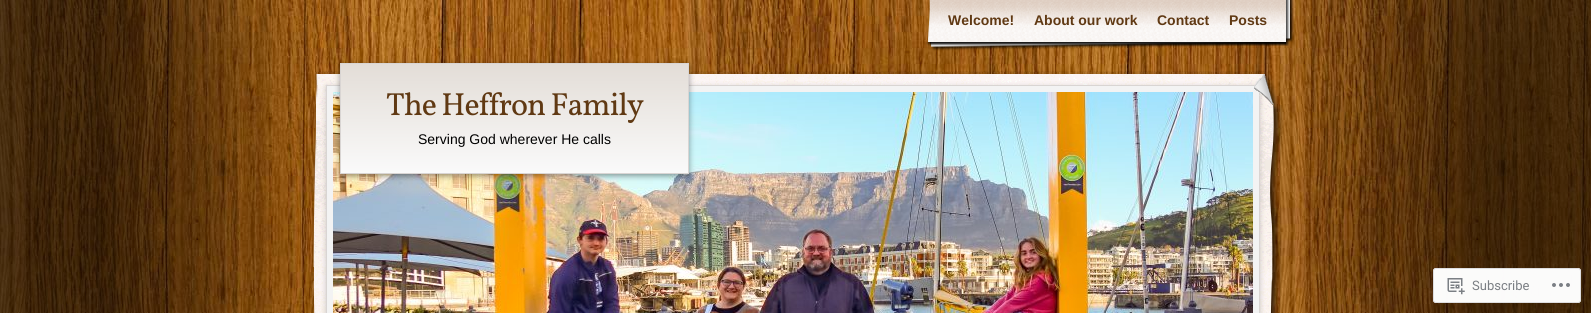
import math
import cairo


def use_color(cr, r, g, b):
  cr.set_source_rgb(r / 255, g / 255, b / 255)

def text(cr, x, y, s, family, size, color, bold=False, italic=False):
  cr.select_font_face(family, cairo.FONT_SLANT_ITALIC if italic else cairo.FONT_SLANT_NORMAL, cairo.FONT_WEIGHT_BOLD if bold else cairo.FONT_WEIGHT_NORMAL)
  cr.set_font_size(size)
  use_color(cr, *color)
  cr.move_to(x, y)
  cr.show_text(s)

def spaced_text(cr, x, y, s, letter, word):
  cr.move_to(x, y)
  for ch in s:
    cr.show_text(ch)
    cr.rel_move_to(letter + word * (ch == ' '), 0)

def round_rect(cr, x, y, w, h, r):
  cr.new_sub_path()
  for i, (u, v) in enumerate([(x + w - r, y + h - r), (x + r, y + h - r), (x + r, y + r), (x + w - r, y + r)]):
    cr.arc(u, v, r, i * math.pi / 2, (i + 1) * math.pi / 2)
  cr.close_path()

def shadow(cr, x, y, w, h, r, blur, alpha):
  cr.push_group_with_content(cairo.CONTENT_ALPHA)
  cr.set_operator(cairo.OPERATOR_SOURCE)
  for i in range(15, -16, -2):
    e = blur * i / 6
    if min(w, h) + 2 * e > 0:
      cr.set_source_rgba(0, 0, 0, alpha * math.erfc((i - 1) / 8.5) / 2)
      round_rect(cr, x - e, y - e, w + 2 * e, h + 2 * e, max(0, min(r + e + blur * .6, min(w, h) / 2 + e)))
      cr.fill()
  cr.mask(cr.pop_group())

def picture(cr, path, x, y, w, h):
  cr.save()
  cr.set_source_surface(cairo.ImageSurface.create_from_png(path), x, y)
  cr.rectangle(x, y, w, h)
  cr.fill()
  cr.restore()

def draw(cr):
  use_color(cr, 255, 255, 255)
  cr.paint()
  picture(cr, "img_01.png", 0, 0, 1591, 313)
  picture(cr, "img_02.png", 0, 0, 1591, 313)
  picture(cr, "img_03.png", 926, 0, 360, 51)
  picture(cr, "img_04.png", 930, 0, 356, 46)
  picture(cr, "img_05.png", 1286, 0, 8, 46)
  picture(cr, "img_06.png", 314, 71, 969, 38)
  picture(cr, "img_09.png", 311, 109, 973, 204)
  use_color(cr, 0, 0, 0)
  shadow(cr, 326, 87, 934, 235, 0, 3, 0.2)
  use_color(cr, 243, 243, 243)
  cr.rectangle(326.5, 85.5, 933, 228)
  cr.fill_preserve()
  use_color(cr, 217, 213, 211)
  cr.set_line_width(1)
  cr.stroke()
  picture(cr, "img_07.png", 1254, 74, 25, 32)
  picture(cr, "img_08.png", 333, 92, 920, 221)
  use_color(cr, 0, 0, 0)
  shadow(cr, 340, 65, 349, 111, 0, 3, 0.4)
  gradient = cairo.LinearGradient(515, 64, 515, 173)
  gradient.add_color_stop_rgba(0, 0.89, 0.867, 0.843, 1)
  gradient.add_color_stop_rgba(1, 0.98, 0.98, 0.98, 1)
  cr.set_source(gradient)
  cr.rectangle(341, 64, 347, 109)
  cr.fill()
  cr.rectangle(340.5, 63.5, 348, 110)
  use_color(cr, 217, 213, 211)
  cr.stroke()
  cr.set_source_rgba(1, 1, 1, 0.98)
  round_rect(cr, 1433, 268, 148, 35, 3)
  cr.fill()
  round_rect(cr, 1433.5, 268.5, 147, 34, 2.5)
  cr.set_source_rgba(0.863, 0.863, 0.871, 0.98)
  cr.stroke()
  picture(cr, "img_10.png", 1447, 278, 18, 17)
  picture(cr, "img_11.png", 1552, 283, 18, 4)
  text(cr, 948, 25, "Welcome!", "Liberation Sans", 14, (96, 57, 19), bold=True)
  text(cr, 1034, 25, "About our work", "Liberation Sans", 14, (96, 57, 19), bold=True)
  text(cr, 1157, 25, "Contact", "Liberation Sans", 14, (96, 57, 19), bold=True)
  text(cr, 1229, 25, "Posts", "Liberation Sans", 14, (96, 57, 19), bold=True)
  cr.select_font_face("Vollkorn")
  cr.set_font_size(32)
  spaced_text(cr, 386, 115, "The Heffron Family", -1, 0)
  text(cr, 418, 144, "Serving God wherever He calls", "Liberation Sans", 14, (0, 0, 0))
  text(cr, 1472, 290, "Subscribe", "Roboto", 13, (123, 127, 132))


surface = cairo.ImageSurface(cairo.FORMAT_RGB24, 1591, 313)
cr = cairo.Context(surface)
options = cairo.FontOptions()
options.set_hint_metrics(cairo.HINT_METRICS_OFF)
options.set_hint_style(cairo.HINT_STYLE_NONE)
cr.set_font_options(options)
cr.set_miter_limit(4)
draw(cr)
surface.write_to_png("out.png")
